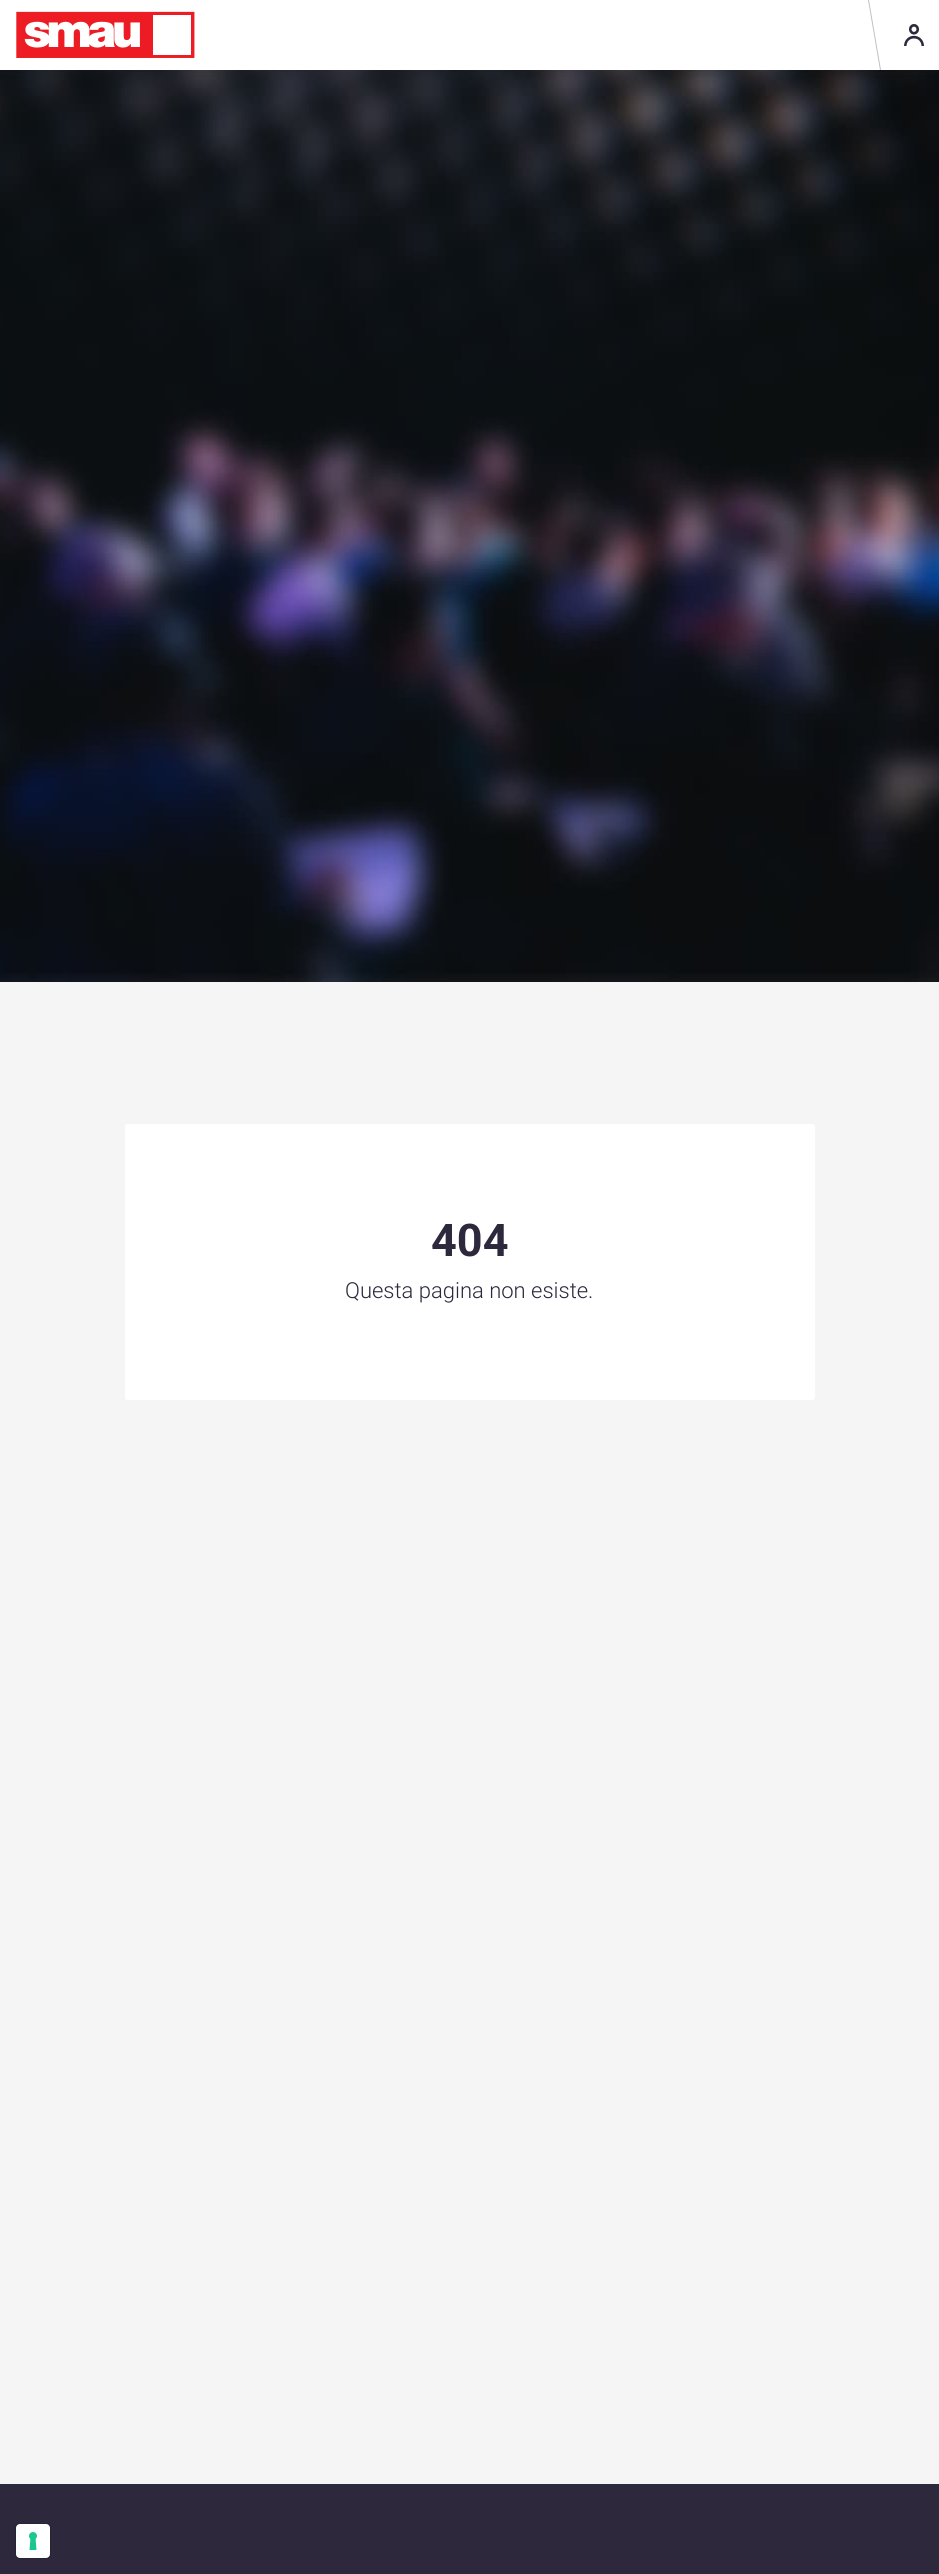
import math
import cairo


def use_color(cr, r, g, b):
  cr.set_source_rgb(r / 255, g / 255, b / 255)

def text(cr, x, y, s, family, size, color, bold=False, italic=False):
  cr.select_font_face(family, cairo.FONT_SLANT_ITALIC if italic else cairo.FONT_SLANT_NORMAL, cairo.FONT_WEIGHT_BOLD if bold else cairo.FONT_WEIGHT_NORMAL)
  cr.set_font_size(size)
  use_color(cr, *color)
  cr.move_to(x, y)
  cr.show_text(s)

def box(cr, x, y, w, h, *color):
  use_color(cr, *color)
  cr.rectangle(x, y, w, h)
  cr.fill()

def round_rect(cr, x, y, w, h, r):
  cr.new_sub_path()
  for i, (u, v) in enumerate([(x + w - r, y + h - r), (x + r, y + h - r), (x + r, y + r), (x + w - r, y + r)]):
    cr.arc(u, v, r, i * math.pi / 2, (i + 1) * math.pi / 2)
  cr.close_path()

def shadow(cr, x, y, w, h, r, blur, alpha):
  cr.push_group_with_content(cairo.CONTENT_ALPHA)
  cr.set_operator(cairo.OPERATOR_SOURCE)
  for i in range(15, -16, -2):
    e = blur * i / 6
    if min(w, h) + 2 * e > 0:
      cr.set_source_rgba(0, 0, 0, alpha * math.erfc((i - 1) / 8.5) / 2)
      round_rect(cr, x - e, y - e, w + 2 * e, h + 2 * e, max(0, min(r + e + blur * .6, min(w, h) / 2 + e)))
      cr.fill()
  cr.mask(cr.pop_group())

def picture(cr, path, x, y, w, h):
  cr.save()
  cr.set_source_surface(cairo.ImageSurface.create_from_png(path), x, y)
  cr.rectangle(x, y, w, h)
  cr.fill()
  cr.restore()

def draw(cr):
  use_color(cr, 245, 245, 245)
  cr.paint()
  picture(cr, "img_03.png", 0, 70, 939, 912)
  use_color(cr, 34, 34, 34)
  shadow(cr, 0, 5, 939, 70, 0, 4, 0.12)
  box(cr, 0, 0, 939, 70, 255, 255, 255)
  picture(cr, "img_01.png", 16, 11, 179, 47)
  picture(cr, "img_02.png", 904, 24, 20, 22)
  use_color(cr, 192, 191, 197)
  cr.new_path()
  cr.move_to(868, 0)
  cr.line_to(869, 0)
  cr.line_to(881, 70)
  cr.line_to(880, 70)
  cr.close_path()
  cr.fill()
  use_color(cr, 255, 255, 255)
  round_rect(cr, 125, 1124, 690, 276, 2.5)
  cr.fill()
  box(cr, 0, 2484, 939, 90, 46, 40, 61)
  round_rect(cr, 15.5, 2523.5, 35, 35, 4.5)
  use_color(cr, 39, 34, 52)
  cr.set_line_width(1)
  cr.stroke()
  use_color(cr, 255, 255, 255)
  round_rect(cr, 16, 2524, 34, 34, 4)
  cr.fill()
  picture(cr, "img_04.png", 29, 2532, 8, 18)
  text(cr, 431, 1256, "404", "Roboto", 45, (46, 40, 61), bold=True)
  text(cr, 345, 1298, "Questa pagina non esiste.", "Roboto Light", 22, (46, 40, 61))


surface = cairo.ImageSurface(cairo.FORMAT_RGB24, 939, 2574)
cr = cairo.Context(surface)
options = cairo.FontOptions()
options.set_hint_metrics(cairo.HINT_METRICS_OFF)
options.set_hint_style(cairo.HINT_STYLE_NONE)
cr.set_font_options(options)
cr.set_miter_limit(4)
draw(cr)
surface.write_to_png("out.png")
